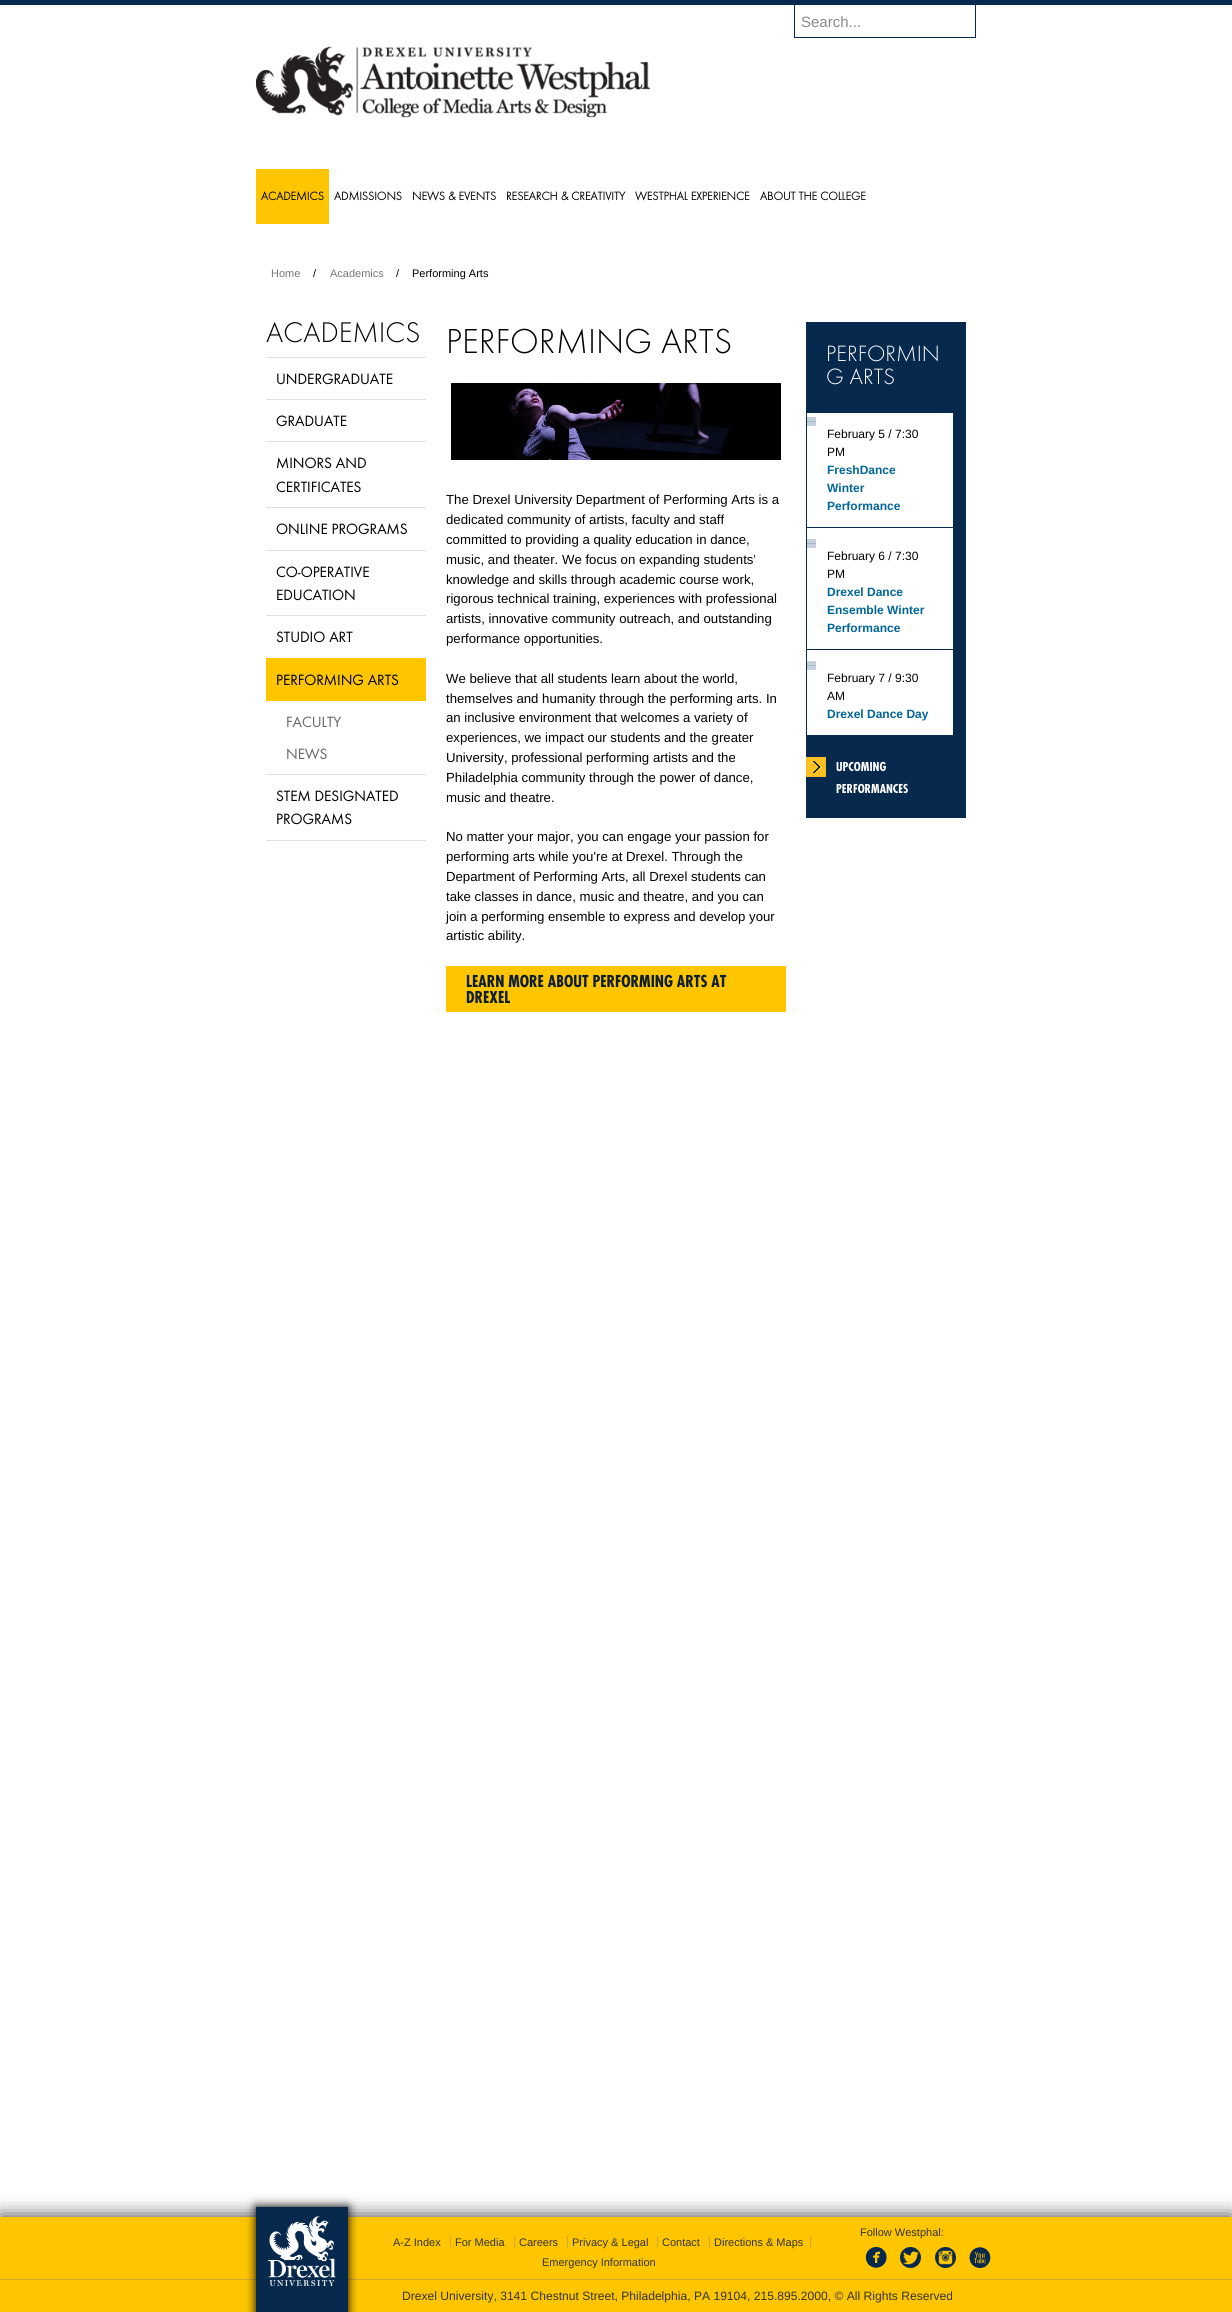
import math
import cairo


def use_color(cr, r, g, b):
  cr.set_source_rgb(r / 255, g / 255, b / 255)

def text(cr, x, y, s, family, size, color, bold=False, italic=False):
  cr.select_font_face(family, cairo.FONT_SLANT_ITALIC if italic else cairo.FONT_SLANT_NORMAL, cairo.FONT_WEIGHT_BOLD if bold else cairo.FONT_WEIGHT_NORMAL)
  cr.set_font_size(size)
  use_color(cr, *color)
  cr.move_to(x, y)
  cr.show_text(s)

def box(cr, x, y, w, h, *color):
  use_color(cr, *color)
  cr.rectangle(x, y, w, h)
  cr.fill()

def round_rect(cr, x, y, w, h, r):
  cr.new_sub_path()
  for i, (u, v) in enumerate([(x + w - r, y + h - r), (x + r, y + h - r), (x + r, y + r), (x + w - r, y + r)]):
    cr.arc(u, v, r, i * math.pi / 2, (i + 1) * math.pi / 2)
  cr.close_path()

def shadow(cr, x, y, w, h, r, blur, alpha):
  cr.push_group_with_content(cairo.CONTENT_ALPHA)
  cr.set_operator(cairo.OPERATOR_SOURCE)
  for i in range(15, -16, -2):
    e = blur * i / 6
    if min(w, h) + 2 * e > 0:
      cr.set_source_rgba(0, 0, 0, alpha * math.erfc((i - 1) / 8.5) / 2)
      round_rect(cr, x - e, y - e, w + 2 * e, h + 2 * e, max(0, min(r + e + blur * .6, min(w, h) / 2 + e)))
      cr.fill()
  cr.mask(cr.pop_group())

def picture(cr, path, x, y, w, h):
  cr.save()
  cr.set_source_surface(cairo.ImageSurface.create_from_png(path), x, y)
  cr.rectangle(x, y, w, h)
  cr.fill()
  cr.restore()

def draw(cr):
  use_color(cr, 255, 255, 255)
  cr.paint()
  box(cr, 0, 0, 1232, 5, 7, 41, 77)
  box(cr, 794, 5, 182, 33, 7, 41, 77)
  box(cr, 795, 5, 180, 32, 255, 255, 255)
  picture(cr, "img_01.png", 256, 46, 394, 72)
  box(cr, 256, 169, 73, 55, 255, 198, 0)
  box(cr, 266, 357, 160, 1, 225, 225, 224)
  box(cr, 266, 399, 160, 1, 225, 225, 224)
  box(cr, 266, 441, 160, 1, 225, 225, 224)
  box(cr, 266, 507, 160, 1, 225, 225, 224)
  box(cr, 266, 550, 160, 1, 225, 225, 224)
  box(cr, 266, 615, 160, 1, 225, 225, 224)
  box(cr, 266, 774, 160, 1, 225, 225, 224)
  box(cr, 266, 658, 160, 43, 255, 198, 0)
  box(cr, 266, 840, 160, 1, 225, 225, 224)
  picture(cr, "img_02.png", 451, 383, 330, 77)
  box(cr, 446, 966, 340, 46, 255, 198, 0)
  box(cr, 806, 322, 160, 496, 7, 41, 77)
  box(cr, 807, 413, 146, 322, 255, 255, 255)
  picture(cr, "img_03.png", 807, 417, 9, 9)
  box(cr, 807, 527, 146, 1, 7, 41, 77)
  picture(cr, "img_03.png", 807, 539, 9, 9)
  box(cr, 807, 649, 146, 1, 7, 41, 77)
  picture(cr, "img_03.png", 807, 661, 9, 9)
  picture(cr, "img_04.png", 806, 757, 20, 20)
  use_color(cr, 0, 0, 0)
  shadow(cr, 0, 2217, 1232, 95, 0, 10, 0.8)
  box(cr, 0, 2217, 1232, 95, 255, 198, 0)
  box(cr, 0, 2279, 1232, 1, 214, 168, 49)
  use_color(cr, 0, 0, 0)
  shadow(cr, 256, 2207, 92, 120, 0, 5, 1)
  box(cr, 256, 2207, 92, 105, 7, 41, 77)
  picture(cr, "img_05.png", 267, 2216, 69, 70)
  picture(cr, "img_06.png", 865, 2247, 22, 21)
  picture(cr, "img_07.png", 900, 2247, 21, 21)
  picture(cr, "img_08.png", 935, 2247, 21, 21)
  picture(cr, "img_09.png", 969, 2247, 22, 21)
  box(cr, 450, 2236, 1, 12, 214, 168, 49)
  box(cr, 514, 2236, 1, 12, 214, 168, 49)
  box(cr, 567, 2236, 1, 12, 214, 168, 49)
  box(cr, 657, 2236, 1, 12, 214, 168, 49)
  box(cr, 709, 2236, 1, 12, 214, 168, 49)
  box(cr, 810, 2236, 1, 12, 214, 168, 49)
  text(cr, 801, 27, "Search...", "Liberation Sans", 15, (136, 136, 136))
  text(cr, 261, 200, "ACADEMICS", "Futura", 12, (0, 0, 0), bold=True)
  text(cr, 334, 200, "ADMISSIONS", "Futura", 12, (0, 0, 0), bold=True)
  text(cr, 412, 200, "NEWS & EVENTS", "Futura", 12, (0, 0, 0), bold=True)
  text(cr, 506, 200, "RESEARCH & CREATIVITY", "Futura", 12, (0, 0, 0), bold=True)
  text(cr, 635, 200, "WESTPHAL EXPERIENCE", "Futura", 12, (0, 0, 0), bold=True)
  text(cr, 760, 200, "ABOUT THE COLLEGE", "Futura", 12, (0, 0, 0), bold=True)
  text(cr, 271, 277, "Home", "Liberation Sans", 11, (119, 119, 119))
  text(cr, 313, 277, "/", "Liberation Sans", 11, (0, 0, 0))
  text(cr, 330, 277, "Academics", "Liberation Sans", 11, (119, 119, 119))
  text(cr, 396, 277, "/", "Liberation Sans", 11, (0, 0, 0))
  text(cr, 412, 277, "Performing Arts", "Liberation Sans", 11, (0, 0, 0))
  text(cr, 266, 342, "ACADEMICS", "Futura Light", 29.5, (0, 0, 0))
  text(cr, 276, 384, "UNDERGRADUATE", "futura", 15.5, (0, 0, 0))
  text(cr, 276, 426, "GRADUATE", "futura", 15.5, (0, 0, 0))
  text(cr, 276, 468, "MINORS AND", "futura", 15.5, (0, 0, 0))
  text(cr, 276, 492, "CERTIFICATES", "futura", 15.5, (0, 0, 0))
  text(cr, 276, 534, "ONLINE PROGRAMS", "futura", 15.5, (0, 0, 0))
  text(cr, 276, 577, "CO-OPERATIVE", "futura", 15.5, (0, 0, 0))
  text(cr, 276, 600, "EDUCATION", "futura", 15.5, (0, 0, 0))
  text(cr, 276, 642, "STUDIO ART", "futura", 15.5, (0, 0, 0))
  text(cr, 276, 685, "PERFORMING ARTS", "futura", 15.5, (0, 0, 0))
  text(cr, 286, 727, "FACULTY", "futura", 15.5, (102, 102, 102))
  text(cr, 286, 759, "NEWS", "futura", 15.5, (102, 102, 102))
  text(cr, 276, 801, "STEM DESIGNATED", "futura", 15.5, (0, 0, 0))
  text(cr, 276, 824, "PROGRAMS", "futura", 15.5, (0, 0, 0))
  text(cr, 446, 353, "PERFORMING ARTS", "Futura Light", 36, (0, 0, 0))
  text(cr, 446, 504, "The Drexel University Department of Performing Arts is a", "Liberation Sans", 13.2, (0, 0, 0))
  text(cr, 446, 524, "dedicated community of artists, faculty and staff", "Liberation Sans", 13.2, (0, 0, 0))
  text(cr, 446, 544, "committed to providing a quality education in dance,", "Liberation Sans", 13.2, (0, 0, 0))
  text(cr, 446, 564, "music, and theater. We focus on expanding students'", "Liberation Sans", 13.2, (0, 0, 0))
  text(cr, 446, 584, "knowledge and skills through academic course work,", "Liberation Sans", 13.2, (0, 0, 0))
  text(cr, 446, 603, "rigorous technical training, experiences with professional", "Liberation Sans", 13.2, (0, 0, 0))
  text(cr, 446, 623, "artists, innovative community outreach, and outstanding", "Liberation Sans", 13.2, (0, 0, 0))
  text(cr, 446, 643, "performance opportunities.", "Liberation Sans", 13.2, (0, 0, 0))
  text(cr, 446, 683, "We believe that all students learn about the world,", "Liberation Sans", 13.2, (0, 0, 0))
  text(cr, 446, 703, "themselves and humanity through the performing arts. In", "Liberation Sans", 13.2, (0, 0, 0))
  text(cr, 446, 722, "an inclusive environment that welcomes a variety of", "Liberation Sans", 13.2, (0, 0, 0))
  text(cr, 446, 742, "experiences, we impact our students and the greater", "Liberation Sans", 13.2, (0, 0, 0))
  text(cr, 446, 762, "University, professional performing artists and the", "Liberation Sans", 13.2, (0, 0, 0))
  text(cr, 446, 782, "Philadelphia community through the power of dance,", "Liberation Sans", 13.2, (0, 0, 0))
  text(cr, 446, 802, "music and theatre.", "Liberation Sans", 13.2, (0, 0, 0))
  text(cr, 446, 841, "No matter your major, you can engage your passion for", "Liberation Sans", 13.2, (0, 0, 0))
  text(cr, 446, 861, "performing arts while you're at Drexel. Through the", "Liberation Sans", 13.2, (0, 0, 0))
  text(cr, 446, 881, "Department of Performing Arts, all Drexel students can", "Liberation Sans", 13.2, (0, 0, 0))
  text(cr, 446, 901, "take classes in dance, music and theatre, and you can", "Liberation Sans", 13.2, (0, 0, 0))
  text(cr, 446, 921, "join a performing ensemble to express and develop your", "Liberation Sans", 13.2, (0, 0, 0))
  text(cr, 446, 940, "artistic ability.", "Liberation Sans", 13.2, (0, 0, 0))
  text(cr, 466, 987, "LEARN MORE ABOUT PERFORMING ARTS AT", "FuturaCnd", 16, (13, 30, 49), bold=True)
  text(cr, 466, 1003, "DREXEL", "FuturaCnd", 16, (13, 30, 49), bold=True)
  text(cr, 826, 361, "PERFORMIN", "Futura Light", 23, (255, 255, 255))
  text(cr, 826, 384, "G ARTS", "Futura Light", 23, (255, 255, 255))
  text(cr, 827, 438, "February 5 / 7:30", "Liberation Sans", 12, (0, 0, 0))
  text(cr, 827, 456, "PM", "Liberation Sans", 12, (0, 0, 0))
  text(cr, 827, 474, "FreshDance", "Liberation Sans", 12, (0, 101, 153), bold=True)
  text(cr, 827, 492, "Winter", "Liberation Sans", 12, (0, 101, 153), bold=True)
  text(cr, 827, 510, "Performance", "Liberation Sans", 12, (0, 101, 153), bold=True)
  text(cr, 827, 560, "February 6 / 7:30", "Liberation Sans", 12, (0, 0, 0))
  text(cr, 827, 578, "PM", "Liberation Sans", 12, (0, 0, 0))
  text(cr, 827, 596, "Drexel Dance", "Liberation Sans", 12, (0, 101, 153), bold=True)
  text(cr, 827, 614, "Ensemble Winter", "Liberation Sans", 12, (0, 101, 153), bold=True)
  text(cr, 827, 632, "Performance", "Liberation Sans", 12, (0, 101, 153), bold=True)
  text(cr, 827, 682, "February 7 / 9:30", "Liberation Sans", 12, (0, 0, 0))
  text(cr, 827, 700, "AM", "Liberation Sans", 12, (0, 0, 0))
  text(cr, 827, 718, "Drexel Dance Day", "Liberation Sans", 12, (0, 101, 153), bold=True)
  text(cr, 836, 771, "UPCOMING", "FuturaCnd", 12, (255, 255, 255), bold=True)
  text(cr, 836, 793, "PERFORMANCES", "FuturaCnd", 12, (255, 255, 255), bold=True)
  text(cr, 860, 2236, "Follow Westphal:", "Liberation Sans", 11, (51, 51, 51))
  text(cr, 393, 2246, "A-Z Index", "Liberation Sans", 11, (51, 51, 51))
  text(cr, 455, 2246, "For Media", "Liberation Sans", 11, (51, 51, 51))
  text(cr, 519, 2246, "Careers", "Liberation Sans", 11, (51, 51, 51))
  text(cr, 572, 2246, "Privacy & Legal", "Liberation Sans", 11, (51, 51, 51))
  text(cr, 662, 2246, "Contact", "Liberation Sans", 11, (51, 51, 51))
  text(cr, 714, 2246, "Directions & Maps", "Liberation Sans", 11, (51, 51, 51))
  text(cr, 542, 2266, "Emergency Information", "Liberation Sans", 11, (51, 51, 51))
  text(cr, 402, 2300, "Drexel University, 3141 Chestnut Street, Philadelphia, PA 19104, 215.895.2000, © All Rights Reserved", "Liberation Sans", 12.1, (51, 51, 51))


surface = cairo.ImageSurface(cairo.FORMAT_RGB24, 1232, 2312)
cr = cairo.Context(surface)
options = cairo.FontOptions()
options.set_hint_metrics(cairo.HINT_METRICS_OFF)
options.set_hint_style(cairo.HINT_STYLE_NONE)
cr.set_font_options(options)
cr.set_miter_limit(4)
draw(cr)
surface.write_to_png("out.png")
